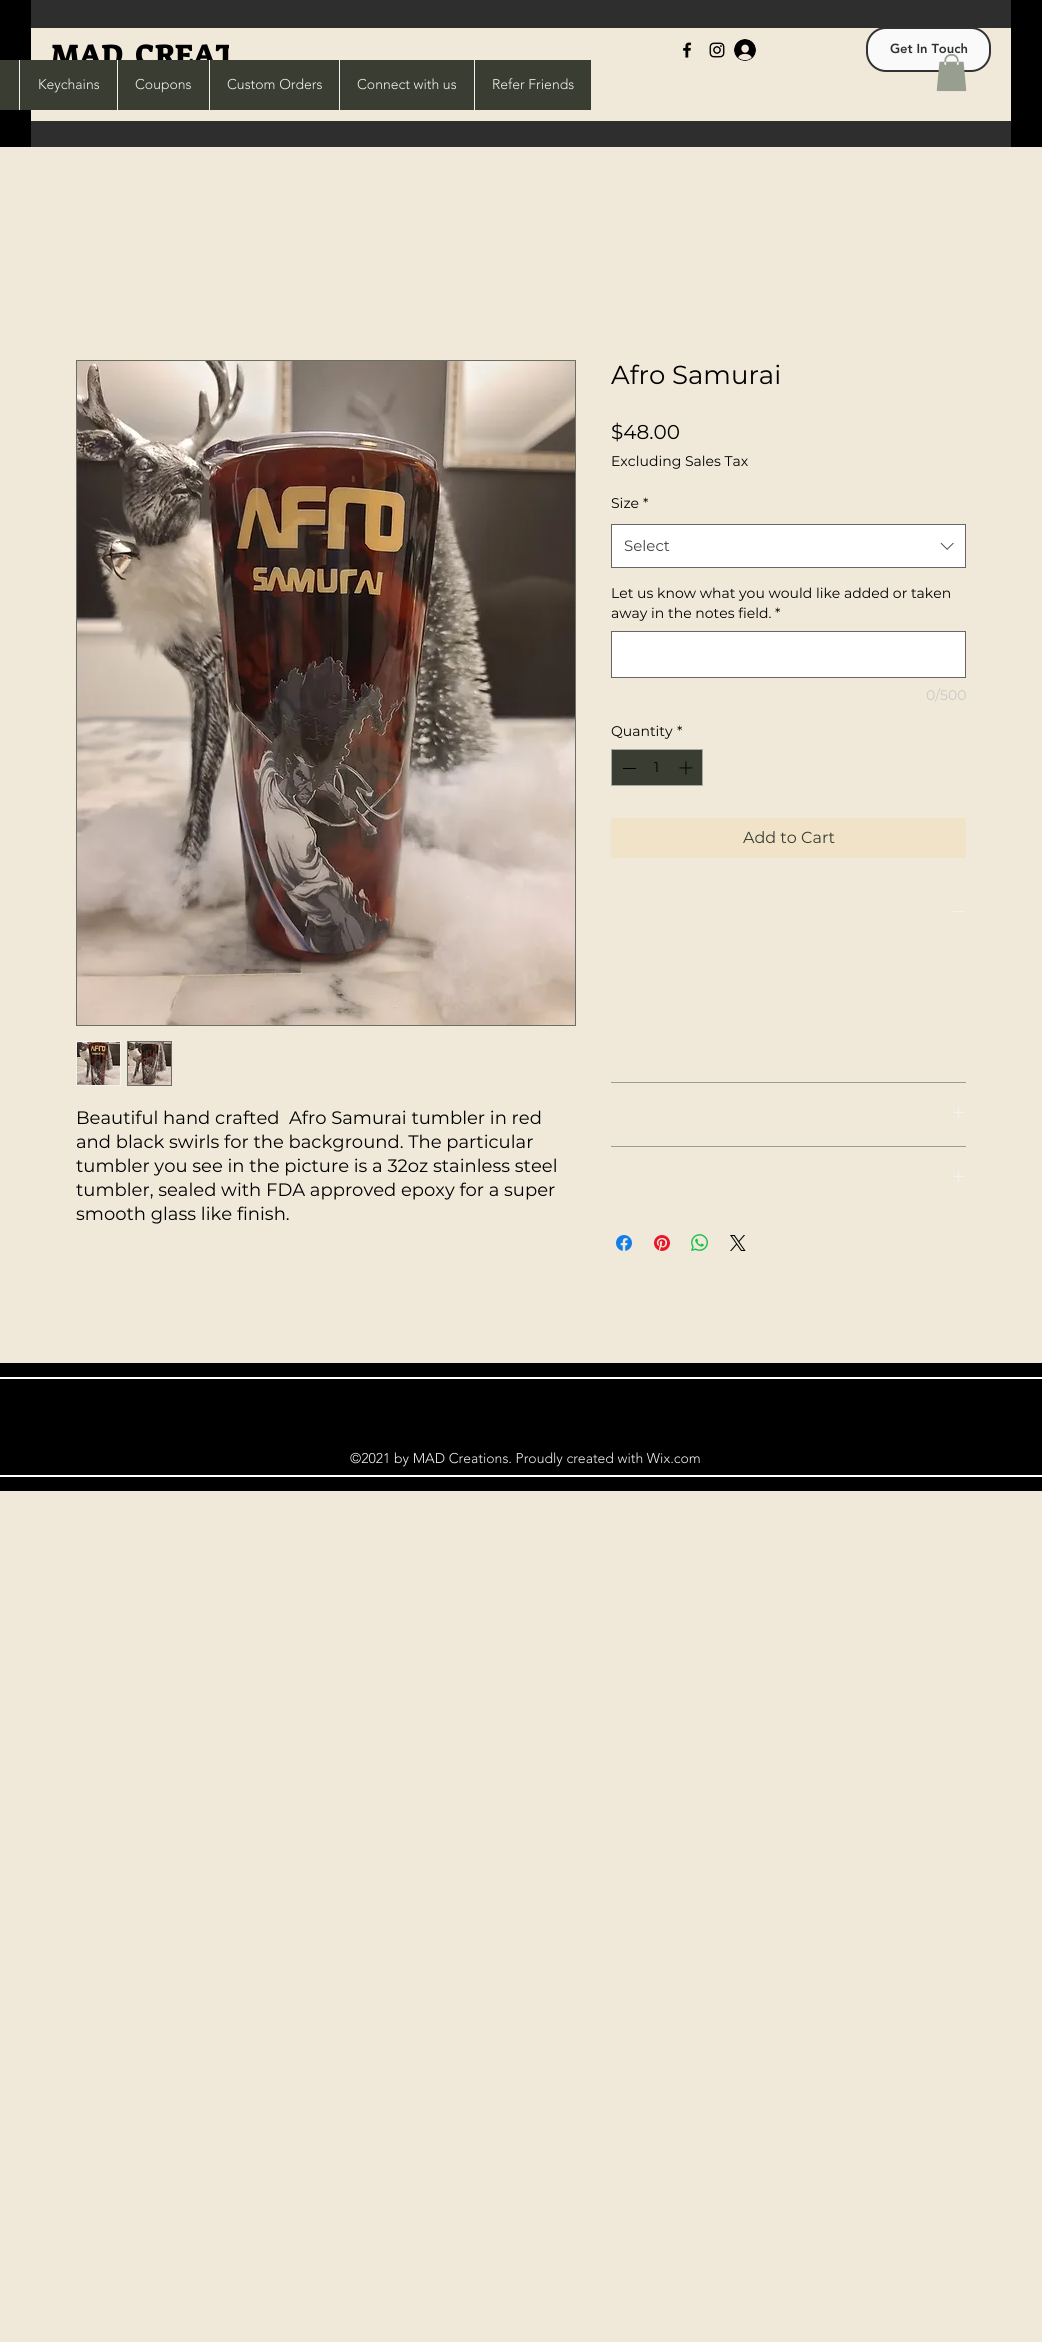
import math
import cairo


def use_color(cr, r, g, b):
  cr.set_source_rgb(r / 255, g / 255, b / 255)

def text(cr, x, y, s, family, size, color, bold=False, italic=False):
  cr.select_font_face(family, cairo.FONT_SLANT_ITALIC if italic else cairo.FONT_SLANT_NORMAL, cairo.FONT_WEIGHT_BOLD if bold else cairo.FONT_WEIGHT_NORMAL)
  cr.set_font_size(size)
  use_color(cr, *color)
  cr.move_to(x, y)
  cr.show_text(s)

def box(cr, x, y, w, h, *color):
  use_color(cr, *color)
  cr.rectangle(x, y, w, h)
  cr.fill()

def round_rect(cr, x, y, w, h, r):
  cr.new_sub_path()
  for i, (u, v) in enumerate([(x + w - r, y + h - r), (x + r, y + h - r), (x + r, y + r), (x + w - r, y + r)]):
    cr.arc(u, v, r, i * math.pi / 2, (i + 1) * math.pi / 2)
  cr.close_path()

def picture(cr, path, x, y, w, h):
  cr.save()
  cr.set_source_surface(cairo.ImageSurface.create_from_png(path), x, y)
  cr.rectangle(x, y, w, h)
  cr.fill()
  cr.restore()

def draw(cr):
  use_color(cr, 240, 233, 218)
  cr.paint()
  box(cr, 0, 0, 1042, 147, 0, 0, 0)
  box(cr, 31, 0, 980, 147, 47, 46, 46)
  box(cr, 31, 28, 198, 93, 240, 233, 218)
  use_color(cr, 255, 255, 255)
  cr.rectangle(611.5, 524.5, 354, 43)
  cr.fill_preserve()
  use_color(cr, 102, 102, 102)
  cr.set_line_width(1)
  cr.stroke()
  picture(cr, "img_05.png", 940, 542, 14, 8)
  use_color(cr, 255, 255, 255)
  cr.rectangle(611.5, 631.5, 354, 46)
  cr.fill_preserve()
  use_color(cr, 102, 102, 102)
  cr.stroke()
  use_color(cr, 57, 61, 50)
  cr.rectangle(611.5, 749.5, 91, 36)
  cr.fill_preserve()
  use_color(cr, 167, 170, 163)
  cr.stroke()
  box(cr, 623, 768, 13, 1, 0, 0, 0)
  picture(cr, "img_06.png", 679, 761, 14, 14)
  box(cr, 611, 818, 355, 40, 241, 227, 200)
  box(cr, 611, 1082, 355, 1, 152, 158, 144)
  box(cr, 953, 911, 11, 1, 241, 243, 238)
  box(cr, 611, 1146, 355, 1, 152, 158, 144)
  picture(cr, "img_07.png", 953, 1107, 11, 11)
  picture(cr, "img_07.png", 953, 1171, 11, 11)
  picture(cr, "img_08.png", 616, 1235, 16, 16)
  picture(cr, "img_09.png", 654, 1235, 16, 16)
  picture(cr, "img_10.png", 691, 1234, 17, 17)
  picture(cr, "img_11.png", 730, 1235, 16, 16)
  cr.rectangle(76.5, 360.5, 499, 665)
  use_color(cr, 106, 110, 100)
  cr.stroke()
  picture(cr, "img_12.png", 77, 361, 498, 664)
  cr.rectangle(76.5, 1041.5, 44, 44)
  use_color(cr, 241, 243, 238)
  cr.stroke()
  picture(cr, "img_13.png", 77, 1042, 43, 43)
  box(cr, 127, 1041, 45, 45, 106, 110, 100)
  picture(cr, "img_14.png", 128, 1042, 43, 43)
  box(cr, 0, 1363, 1042, 128, 0, 0, 0)
  box(cr, 0, 1377, 1042, 2, 255, 255, 255)
  box(cr, 0, 1475, 1042, 2, 255, 255, 255)
  text(cr, 51, 65, "MAD  CREAT", "Suez One", 30, (0, 0, 0))
  box(cr, 229, 28, 782, 93, 240, 233, 218)
  use_color(cr, 250, 250, 250)
  round_rect(cr, 867, 28, 123, 43, 19)
  cr.fill_preserve()
  use_color(cr, 50, 50, 50)
  cr.set_line_width(2)
  cr.stroke()
  text(cr, 890, 53, "Get In Touch", "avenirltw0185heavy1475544 Black", 13, (50, 50, 50))
  picture(cr, "img_02.png", 709, 42, 16, 16)
  picture(cr, "img_01.png", 683, 42, 9, 16)
  picture(cr, "img_03.png", 734, 39, 22, 22)
  box(cr, 0, 60, 591, 50, 57, 61, 50)
  text(cr, 492, 89, "Refer Friends", "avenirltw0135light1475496 Light", 14, (241, 243, 238))
  box(cr, 474, 60, 1, 50, 241, 243, 238)
  text(cr, 357, 89, "Connect with us", "avenirltw0135light1475496 Light", 14, (241, 243, 238))
  box(cr, 339, 60, 1, 50, 241, 243, 238)
  text(cr, 227, 89, "Custom Orders", "avenirltw0135light1475496 Light", 14, (241, 243, 238))
  box(cr, 209, 60, 1, 50, 241, 243, 238)
  text(cr, 135, 89, "Coupons", "avenirltw0135light1475496 Light", 14, (241, 243, 238))
  box(cr, 117, 60, 1, 50, 241, 243, 238)
  text(cr, 38, 89, "Keychains", "avenirltw0135light1475496 Light", 14, (241, 243, 238))
  box(cr, 19, 60, 1, 50, 241, 243, 238)
  picture(cr, "img_04.png", 936, 54, 31, 38)
  text(cr, 611, 384, "Afro Samurai", "Montserrat", 26, (0, 0, 0))
  text(cr, 611, 439, "$48.00", "Montserrat", 20, (0, 0, 0))
  text(cr, 611, 466, "Excluding Sales Tax", "Montserrat", 14, (0, 0, 0))
  text(cr, 611, 508, "Size", "Montserrat", 14, (0, 0, 0))
  text(cr, 643, 508, "*", "Montserrat", 14, (0, 0, 0))
  text(cr, 624, 551, "Select", "Montserrat", 15, (68, 68, 68))
  text(cr, 611, 598, "Let us know what you would like added or taken", "Montserrat", 14, (0, 0, 0))
  text(cr, 611, 618, "away in the notes field.", "Montserrat", 14, (0, 0, 0))
  text(cr, 775, 618, "*", "Montserrat", 14, (0, 0, 0))
  text(cr, 926, 700, "0/500", "Montserrat", 14, (200, 201, 197))
  text(cr, 611, 736, "Quantity", "Montserrat", 14, (0, 0, 0))
  text(cr, 677, 736, "*", "Montserrat", 14, (0, 0, 0))
  text(cr, 654, 772, "1", "Montserrat", 14, (0, 0, 0))
  text(cr, 743, 843, "Add to Cart", "Montserrat", 16, (57, 61, 50))
  text(cr, 76, 1124, "Beautiful hand crafted  Afro Samurai tumbler in red", "Montserrat", 18, (0, 0, 0))
  text(cr, 76, 1148, "and black swirls for the background. The particular", "Montserrat", 18, (0, 0, 0))
  text(cr, 76, 1172, "tumbler you see in the picture is a 32oz stainless steel", "Montserrat", 18, (0, 0, 0))
  text(cr, 76, 1196, "tumbler, sealed with FDA approved epoxy for a super", "Montserrat", 18, (0, 0, 0))
  text(cr, 76, 1220, "smooth glass like finish.", "Montserrat", 18, (0, 0, 0))
  text(cr, 350, 1463, "©2021 by MAD Creations. Proudly created with Wix.com", "avenirltw0135light1475496 Light", 14, (241, 243, 238))


surface = cairo.ImageSurface(cairo.FORMAT_RGB24, 1042, 2342)
cr = cairo.Context(surface)
options = cairo.FontOptions()
options.set_hint_metrics(cairo.HINT_METRICS_OFF)
options.set_hint_style(cairo.HINT_STYLE_NONE)
cr.set_font_options(options)
cr.set_miter_limit(4)
draw(cr)
surface.write_to_png("out.png")
